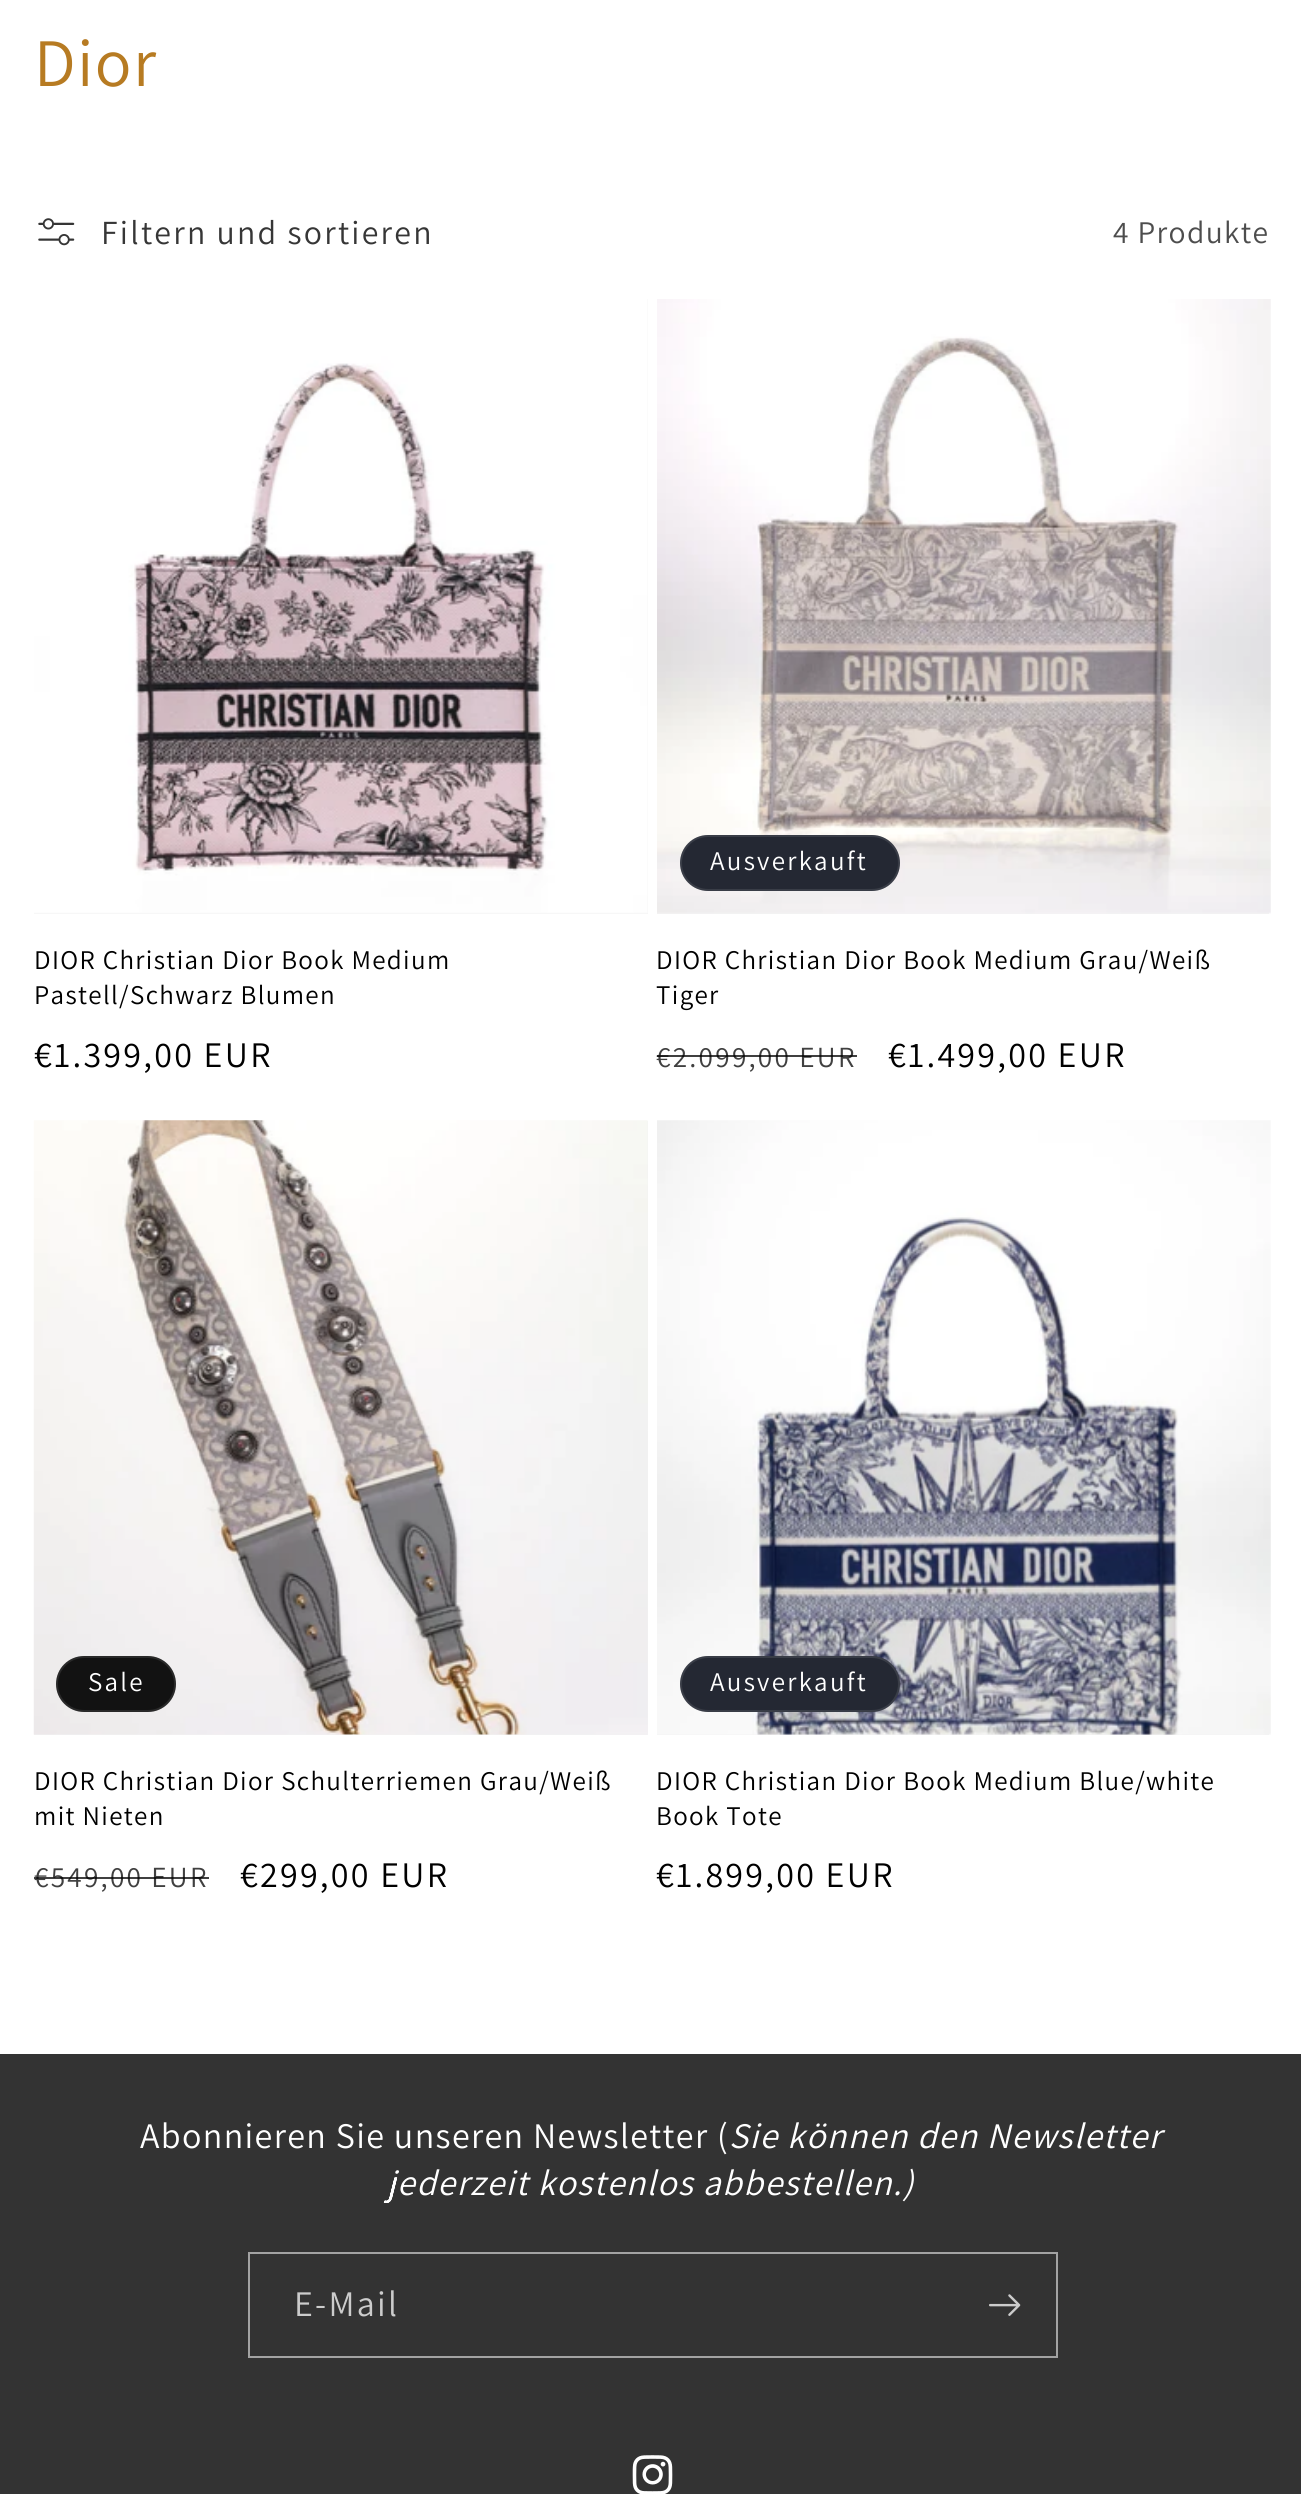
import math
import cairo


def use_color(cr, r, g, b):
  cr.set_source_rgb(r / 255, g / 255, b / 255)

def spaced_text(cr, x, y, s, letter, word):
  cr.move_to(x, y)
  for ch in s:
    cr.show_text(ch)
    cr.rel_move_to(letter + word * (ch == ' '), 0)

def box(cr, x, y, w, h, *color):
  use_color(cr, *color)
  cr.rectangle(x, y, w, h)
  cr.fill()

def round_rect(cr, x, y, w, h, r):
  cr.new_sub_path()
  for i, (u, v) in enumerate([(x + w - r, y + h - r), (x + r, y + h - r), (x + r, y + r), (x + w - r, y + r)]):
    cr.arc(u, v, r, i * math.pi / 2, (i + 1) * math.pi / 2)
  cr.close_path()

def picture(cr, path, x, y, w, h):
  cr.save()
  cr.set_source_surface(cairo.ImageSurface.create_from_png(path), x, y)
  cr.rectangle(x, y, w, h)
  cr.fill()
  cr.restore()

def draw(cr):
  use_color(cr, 255, 255, 255)
  cr.paint()
  picture(cr, "img_01.png", 38, 218, 37, 28)
  box(cr, 34, 299, 614, 615, 243, 243, 243)
  picture(cr, "img_02.png", 34, 299, 614, 615)
  box(cr, 657, 912, 612, 2, 243, 243, 243)
  picture(cr, "img_03.png", 657, 299, 614, 615)
  use_color(cr, 36, 40, 51)
  round_rect(cr, 680, 835, 220, 56, 28)
  cr.fill()
  round_rect(cr, 681, 836, 218, 54, 27)
  cr.set_source_rgba(1, 1, 1, 0.1)
  cr.stroke()
  box(cr, 34, 1121, 614, 614, 243, 243, 243)
  picture(cr, "img_04.png", 33, 1120, 615, 615)
  use_color(cr, 18, 18, 18)
  round_rect(cr, 56, 1656, 120, 56, 28)
  cr.fill()
  round_rect(cr, 57, 1657, 118, 54, 27)
  cr.set_source_rgba(1, 1, 1, 0.1)
  cr.stroke()
  box(cr, 657, 1733, 612, 2, 243, 243, 243)
  picture(cr, "img_05.png", 657, 1120, 614, 615)
  use_color(cr, 36, 40, 51)
  round_rect(cr, 680, 1656, 220, 56, 28)
  cr.fill()
  round_rect(cr, 681, 1657, 218, 54, 27)
  cr.set_source_rgba(1, 1, 1, 0.1)
  cr.stroke()
  box(cr, 0, 2054, 1301, 440, 51, 51, 51)
  cr.rectangle(249, 2253, 808, 104)
  use_color(cr, 163, 163, 163)
  cr.stroke()
  picture(cr, "img_06.png", 989, 2294, 32, 22)
  picture(cr, "img_07.png", 632, 2455, 41, 39)
  cr.select_font_face("Assistant")
  cr.set_font_size(68)
  use_color(cr, 183, 123, 34)
  spaced_text(cr, 34, 86, "Dior", 1.35, 0)
  cr.set_font_size(33.75)
  use_color(cr, 54, 54, 54)
  spaced_text(cr, 101, 244, "Filtern und sortieren", 2.25, 0)
  cr.set_font_size(31.5)
  use_color(cr, 77, 77, 77)
  spaced_text(cr, 1113, 243, "4 Produkte", 1.35, 0)
  cr.set_font_size(27)
  use_color(cr, 0, 0, 0)
  spaced_text(cr, 34, 969, "DIOR Christian Dior Book Medium", 1.35, 0)
  spaced_text(cr, 34, 1004, "Pastell/Schwarz Blumen", 1.35, 0)
  cr.set_font_size(36)
  spaced_text(cr, 34, 1067, "€1.399,00 EUR", 2.25, 0)
  cr.set_font_size(27)
  use_color(cr, 255, 255, 255)
  spaced_text(cr, 710, 870, "Ausverkauft", 2.25, 0)
  use_color(cr, 0, 0, 0)
  spaced_text(cr, 656, 969, "DIOR Christian Dior Book Medium Grau/Weiß", 1.35, 0)
  spaced_text(cr, 656, 1004, "Tiger", 1.35, 0)
  cr.set_font_size(29.25)
  use_color(cr, 64, 64, 64)
  spaced_text(cr, 656, 1067, "€2.099,00 EUR", 2.25, 0)
  cr.set_source_rgba(0, 0, 0, 0.75)
  cr.rectangle(657, 1055, 200, 2)
  cr.fill()
  cr.set_font_size(36)
  use_color(cr, 0, 0, 0)
  spaced_text(cr, 888, 1067, "€1.499,00 EUR", 2.25, 0)
  cr.set_font_size(27)
  use_color(cr, 255, 255, 255)
  spaced_text(cr, 88, 1691, "Sale", 2.25, 0)
  use_color(cr, 0, 0, 0)
  spaced_text(cr, 34, 1790, "DIOR Christian Dior Schulterriemen Grau/Weiß", 1.35, 0)
  spaced_text(cr, 34, 1825, "mit Nieten", 1.35, 0)
  cr.set_font_size(29.25)
  use_color(cr, 64, 64, 64)
  spaced_text(cr, 34, 1887, "€549,00 EUR", 2.25, 0)
  cr.set_source_rgba(0, 0, 0, 0.75)
  cr.rectangle(34, 1877, 175, 2)
  cr.fill()
  cr.set_font_size(36)
  use_color(cr, 0, 0, 0)
  spaced_text(cr, 240, 1887, "€299,00 EUR", 2.25, 0)
  cr.set_font_size(27)
  use_color(cr, 255, 255, 255)
  spaced_text(cr, 710, 1691, "Ausverkauft", 2.25, 0)
  use_color(cr, 0, 0, 0)
  spaced_text(cr, 656, 1790, "DIOR Christian Dior Book Medium Blue/white", 1.35, 0)
  spaced_text(cr, 656, 1825, "Book Tote", 1.35, 0)
  cr.set_font_size(36)
  spaced_text(cr, 656, 1887, "€1.899,00 EUR", 2.25, 0)
  use_color(cr, 255, 255, 255)
  spaced_text(cr, 140, 2148, "Abonnieren Sie unseren Newsletter (", 1.35, 0)
  cr.select_font_face("Assistant", cairo.FONT_SLANT_ITALIC)
  spaced_text(cr, 729, 2148, "Sie können den Newsletter", 1.35, 0)
  spaced_text(cr, 387, 2195, "jederzeit kostenlos abbestellen.)", 1.35, 0)
  cr.select_font_face("Assistant")
  use_color(cr, 204, 204, 204)
  spaced_text(cr, 294, 2316, "E-Mail", 2.25, 0)


surface = cairo.ImageSurface(cairo.FORMAT_RGB24, 1301, 2494)
cr = cairo.Context(surface)
options = cairo.FontOptions()
options.set_hint_metrics(cairo.HINT_METRICS_OFF)
options.set_hint_style(cairo.HINT_STYLE_NONE)
cr.set_font_options(options)
cr.set_miter_limit(4)
draw(cr)
surface.write_to_png("out.png")
